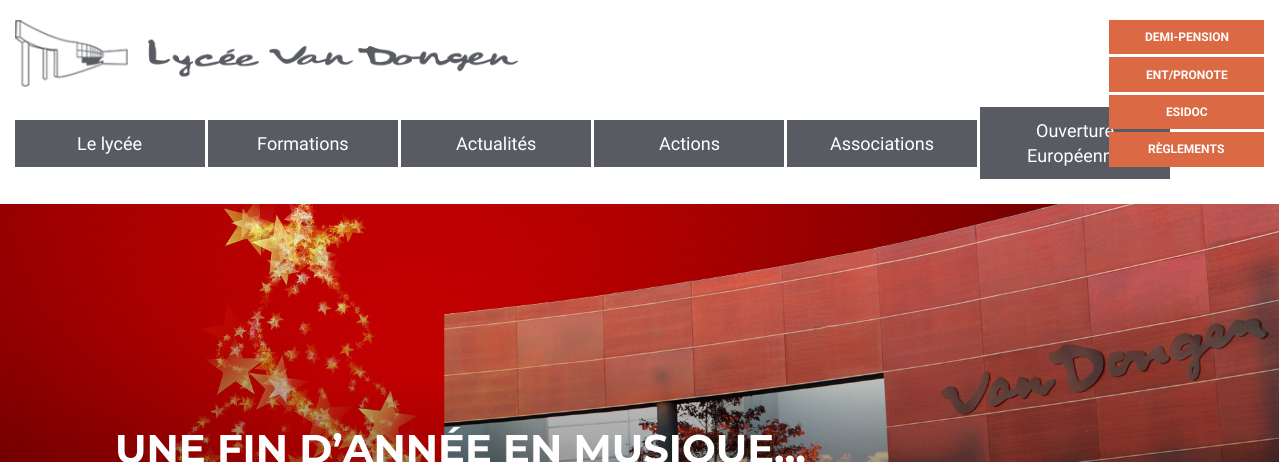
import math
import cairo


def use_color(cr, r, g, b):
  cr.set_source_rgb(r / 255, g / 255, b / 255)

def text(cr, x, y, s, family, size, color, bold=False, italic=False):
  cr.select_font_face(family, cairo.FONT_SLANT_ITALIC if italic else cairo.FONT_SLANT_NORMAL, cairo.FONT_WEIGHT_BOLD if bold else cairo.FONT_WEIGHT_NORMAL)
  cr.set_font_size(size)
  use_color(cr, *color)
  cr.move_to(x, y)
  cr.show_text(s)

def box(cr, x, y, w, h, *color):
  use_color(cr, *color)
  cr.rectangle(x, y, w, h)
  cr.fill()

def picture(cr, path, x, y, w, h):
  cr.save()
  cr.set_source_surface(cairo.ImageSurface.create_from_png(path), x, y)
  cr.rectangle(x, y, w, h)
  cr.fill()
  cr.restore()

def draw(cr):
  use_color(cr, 255, 255, 255)
  cr.paint()
  picture(cr, "img_01.png", 15, 20, 503, 67)
  box(cr, 15, 120, 190, 47, 89, 91, 98)
  box(cr, 208, 120, 190, 47, 89, 91, 98)
  box(cr, 401, 120, 190, 47, 89, 91, 98)
  box(cr, 594, 120, 190, 47, 89, 91, 98)
  box(cr, 787, 120, 190, 47, 89, 91, 98)
  box(cr, 980, 107, 190, 72, 89, 91, 98)
  box(cr, 1109, 20, 155, 34, 218, 105, 68)
  box(cr, 1109, 57, 155, 35, 218, 105, 68)
  picture(cr, "img_02.png", 0, 204, 1279, 258)
  text(cr, 77, 150, "Le lycée", "Roboto", 18, (255, 255, 255))
  text(cr, 257, 150, "Formations", "Roboto", 18, (255, 255, 255))
  text(cr, 456, 150, "Actualités", "Roboto", 18, (255, 255, 255))
  text(cr, 659, 150, "Actions", "Roboto", 18, (255, 255, 255))
  text(cr, 830, 150, "Associations", "Roboto", 18, (255, 255, 255))
  text(cr, 1036, 137, "Ouverture", "Roboto", 18, (255, 255, 255))
  text(cr, 1027, 162, "Européenn", "Roboto", 18, (255, 255, 255))
  text(cr, 1145, 41, "DEMI-PENSION", "Roboto", 12, (255, 255, 255), bold=True)
  text(cr, 1146, 79, "ENT/PRONOTE", "Roboto", 12, (255, 255, 255), bold=True)
  box(cr, 1109, 95, 155, 34, 218, 105, 68)
  text(cr, 1166, 116, "ESIDOC", "Roboto", 12, (255, 255, 255), bold=True)
  box(cr, 1109, 132, 155, 35, 218, 105, 68)
  text(cr, 1148, 153, "RÈGLEMENTS", "Roboto", 12, (255, 255, 255), bold=True)
  text(cr, 115, 463, "UNE FIN D’ANNÉE EN MUSIQUE…", "Montserrat", 40, (255, 255, 255), bold=True)


surface = cairo.ImageSurface(cairo.FORMAT_RGB24, 1279, 462)
cr = cairo.Context(surface)
options = cairo.FontOptions()
options.set_hint_metrics(cairo.HINT_METRICS_OFF)
options.set_hint_style(cairo.HINT_STYLE_NONE)
cr.set_font_options(options)
cr.set_miter_limit(4)
draw(cr)
surface.write_to_png("out.png")
